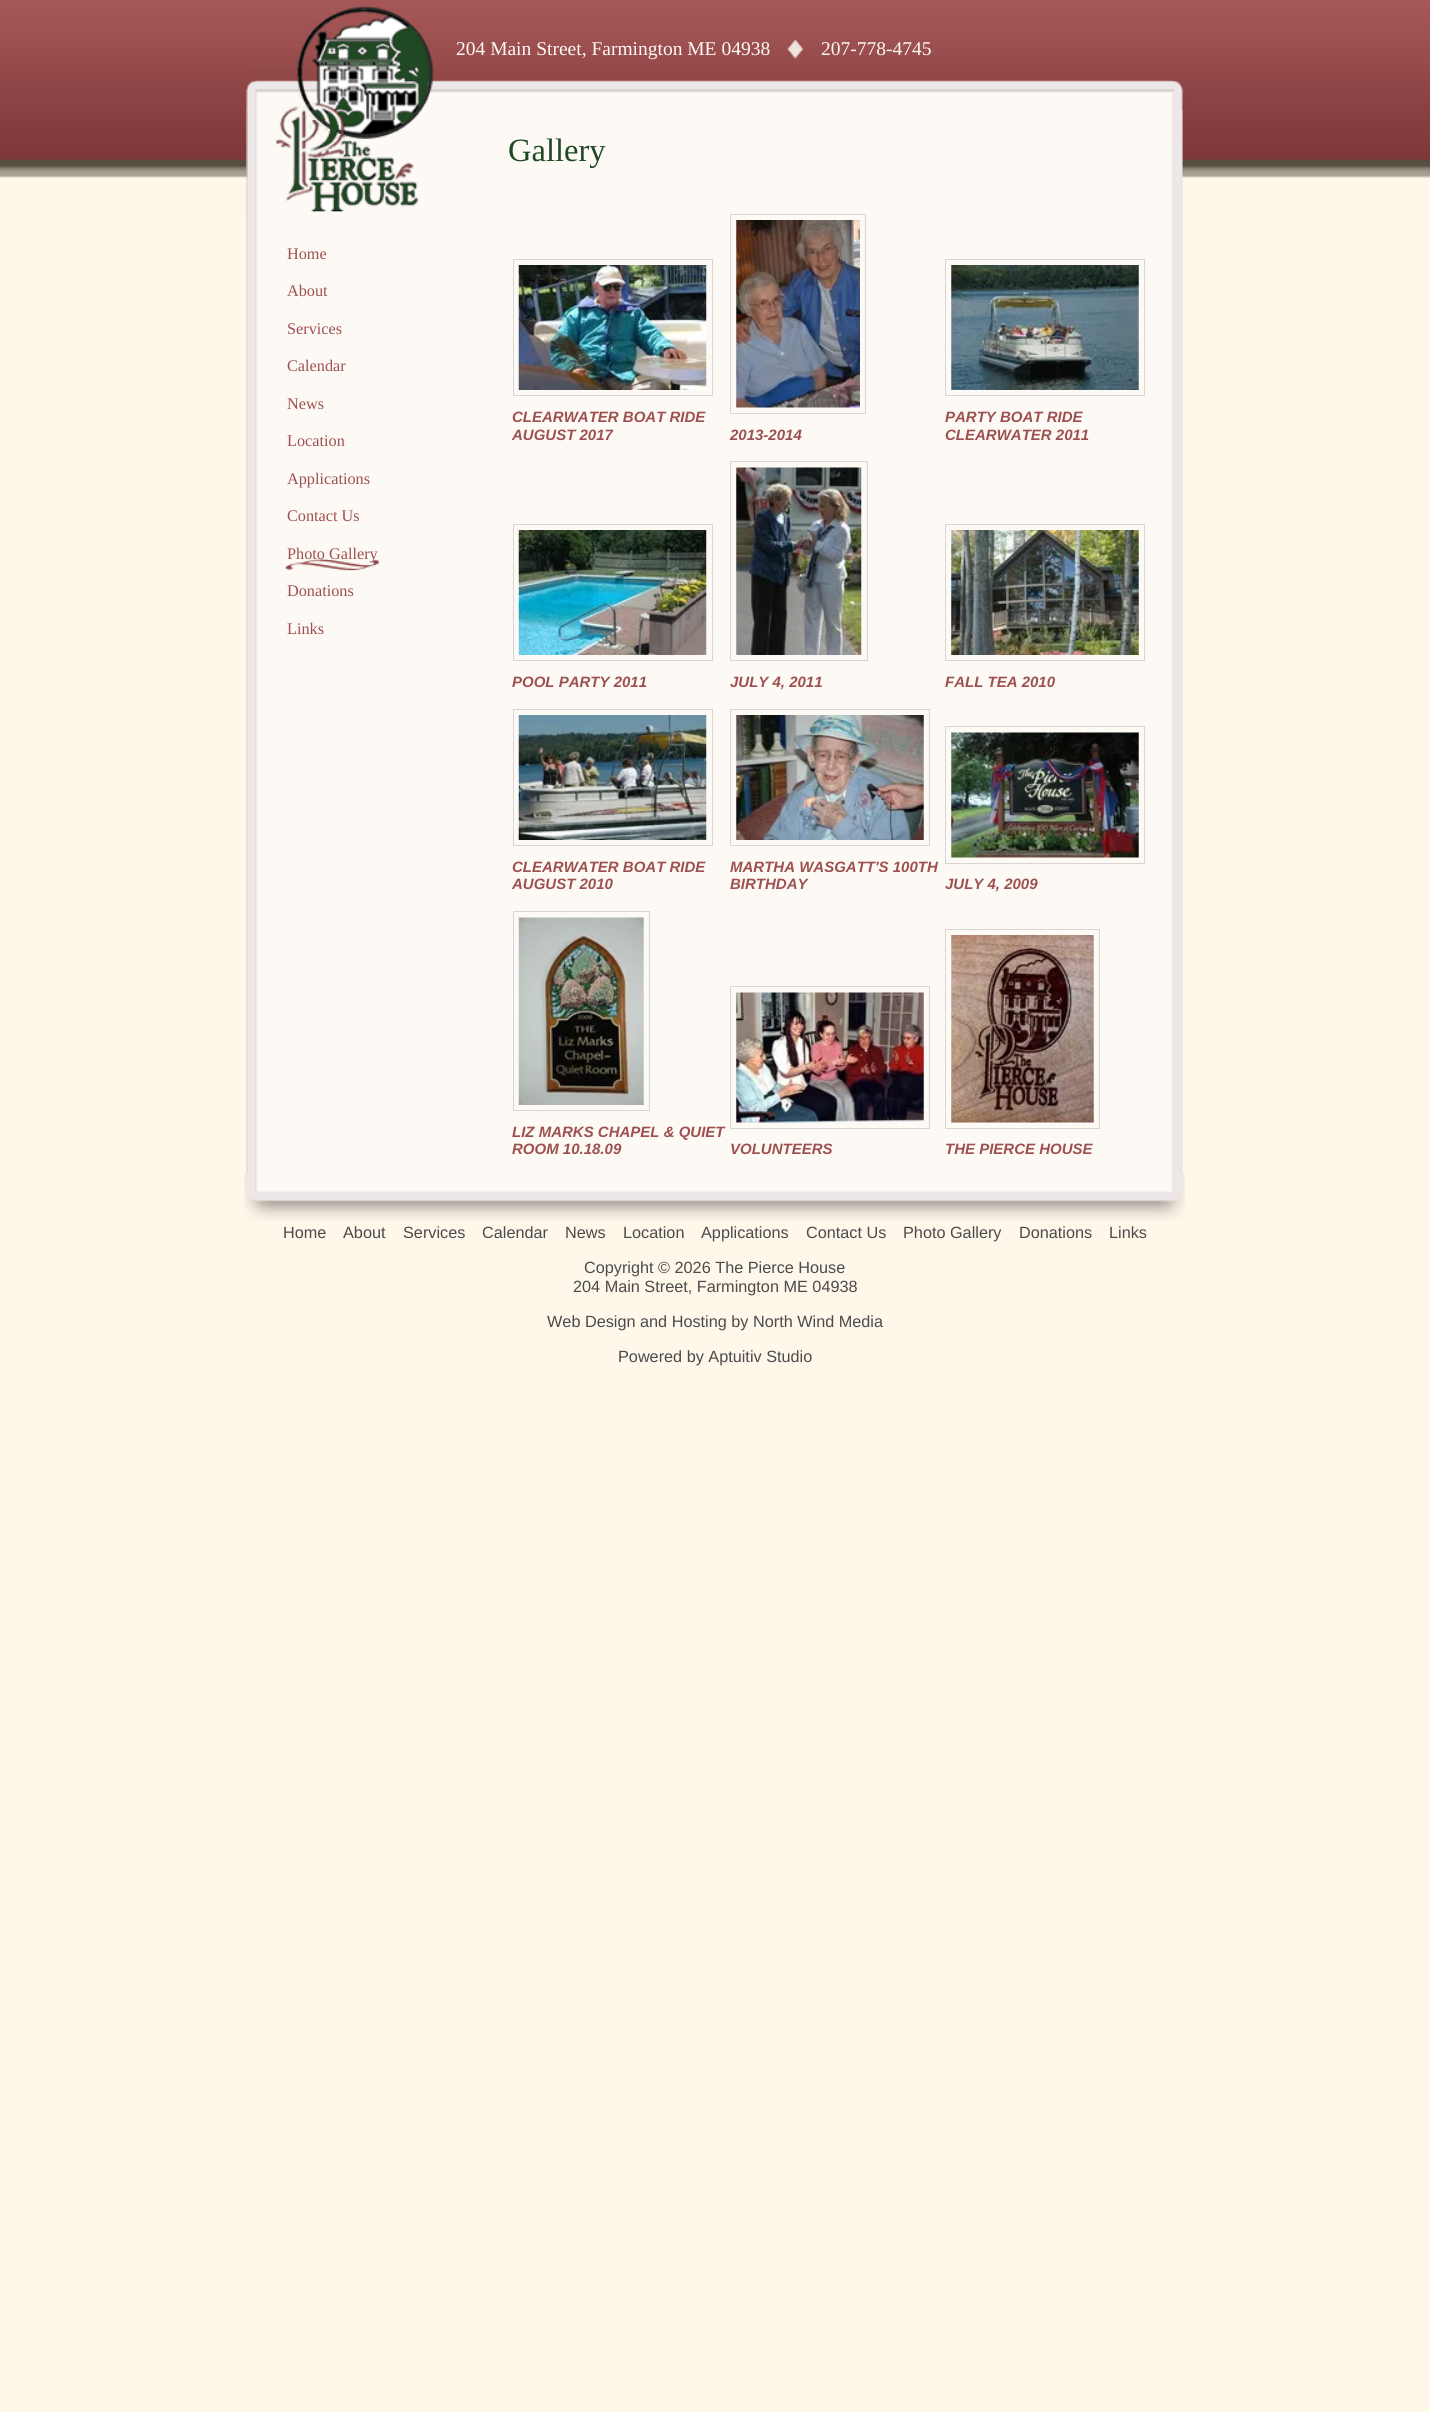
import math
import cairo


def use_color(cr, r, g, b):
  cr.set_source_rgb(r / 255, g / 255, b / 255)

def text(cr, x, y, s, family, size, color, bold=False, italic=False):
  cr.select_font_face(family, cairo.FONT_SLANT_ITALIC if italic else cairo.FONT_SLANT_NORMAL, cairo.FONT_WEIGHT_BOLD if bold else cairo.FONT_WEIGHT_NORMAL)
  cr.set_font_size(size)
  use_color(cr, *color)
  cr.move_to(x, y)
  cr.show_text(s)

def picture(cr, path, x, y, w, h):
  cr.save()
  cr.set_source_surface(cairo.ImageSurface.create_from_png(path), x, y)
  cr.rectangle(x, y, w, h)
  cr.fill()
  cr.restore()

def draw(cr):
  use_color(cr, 255, 247, 234)
  cr.paint()
  picture(cr, "img_01.png", 0, 0, 1430, 178)
  picture(cr, "img_04.png", 244, 80, 941, 30)
  picture(cr, "img_19.png", 244, 1173, 941, 48)
  picture(cr, "img_05.png", 246, 110, 937, 1064)
  picture(cr, "img_02.png", 246, 6, 188, 210)
  picture(cr, "img_03.png", 787, 39, 17, 20)
  picture(cr, "img_06.png", 285, 558, 94, 13)
  cr.rectangle(513.5, 259.5, 199, 136)
  use_color(cr, 217, 213, 213)
  cr.set_line_width(1)
  cr.stroke()
  picture(cr, "img_07.png", 518, 265, 189, 125)
  cr.rectangle(730.5, 214.5, 135, 199)
  cr.stroke()
  picture(cr, "img_08.png", 736, 220, 124, 188)
  cr.rectangle(945.5, 259.5, 199, 136)
  cr.stroke()
  picture(cr, "img_09.png", 951, 265, 188, 125)
  cr.rectangle(513.5, 524.5, 199, 136)
  cr.stroke()
  picture(cr, "img_10.png", 518, 530, 189, 125)
  cr.rectangle(730.5, 461.5, 137, 199)
  cr.stroke()
  picture(cr, "img_11.png", 736, 467, 126, 188)
  cr.rectangle(945.5, 524.5, 199, 136)
  cr.stroke()
  picture(cr, "img_12.png", 951, 530, 188, 125)
  cr.rectangle(513.5, 709.5, 199, 136)
  cr.stroke()
  picture(cr, "img_13.png", 518, 715, 189, 125)
  cr.rectangle(730.5, 709.5, 199, 136)
  cr.stroke()
  picture(cr, "img_14.png", 736, 715, 188, 125)
  cr.rectangle(945.5, 726.5, 199, 137)
  cr.stroke()
  picture(cr, "img_15.png", 951, 732, 188, 126)
  cr.rectangle(513.5, 911.5, 136, 199)
  cr.stroke()
  picture(cr, "img_16.png", 518, 917, 126, 188)
  cr.rectangle(730.5, 986.5, 199, 142)
  cr.stroke()
  picture(cr, "img_17.png", 736, 992, 188, 131)
  cr.rectangle(945.5, 929.5, 154, 199)
  cr.stroke()
  picture(cr, "img_18.png", 951, 935, 143, 188)
  text(cr, 456, 55, "204 Main Street, Farmington ME 04938", "Liberation Serif", 19.5, (253, 250, 245))
  text(cr, 821, 55, "207-778-4745", "Liberation Serif", 19.5, (253, 250, 245))
  text(cr, 287, 259, "Home", "Liberation Serif", 16.25, (158, 80, 80))
  text(cr, 287, 296, "About", "Liberation Serif", 16.25, (158, 80, 80))
  text(cr, 287, 334, "Services", "Liberation Serif", 16.25, (158, 80, 80))
  text(cr, 287, 371, "Calendar", "Liberation Serif", 16.25, (158, 80, 80))
  text(cr, 287, 409, "News", "Liberation Serif", 16.25, (158, 80, 80))
  text(cr, 287, 446, "Location", "Liberation Serif", 16.25, (158, 80, 80))
  text(cr, 287, 484, "Applications", "Liberation Serif", 16.25, (158, 80, 80))
  text(cr, 287, 521, "Contact Us", "Liberation Serif", 16.25, (158, 80, 80))
  text(cr, 287, 559, "Photo Gallery", "Liberation Serif", 16.25, (158, 80, 80))
  text(cr, 287, 596, "Donations", "Liberation Serif", 16.25, (158, 80, 80))
  text(cr, 287, 634, "Links", "Liberation Serif", 16.25, (158, 80, 80))
  text(cr, 508, 161, "Gallery", "Liberation Serif", 32.5, (32, 72, 34))
  text(cr, 512, 422, "CLEARWATER BOAT RIDE", "Liberation Sans", 15, (158, 80, 80), bold=True, italic=True)
  text(cr, 512, 440, "AUGUST 2017", "Liberation Sans", 15, (158, 80, 80), bold=True, italic=True)
  text(cr, 730, 440, "2013-2014", "Liberation Sans", 15, (158, 80, 80), bold=True, italic=True)
  text(cr, 945, 422, "PARTY BOAT RIDE", "Liberation Sans", 15, (158, 80, 80), bold=True, italic=True)
  text(cr, 945, 440, "CLEARWATER 2011", "Liberation Sans", 15, (158, 80, 80), bold=True, italic=True)
  text(cr, 512, 687, "POOL PARTY 2011", "Liberation Sans", 15, (158, 80, 80), bold=True, italic=True)
  text(cr, 730, 687, "JULY 4, 2011", "Liberation Sans", 15, (158, 80, 80), bold=True, italic=True)
  text(cr, 945, 687, "FALL TEA 2010", "Liberation Sans", 15, (158, 80, 80), bold=True, italic=True)
  text(cr, 512, 872, "CLEARWATER BOAT RIDE", "Liberation Sans", 15, (158, 80, 80), bold=True, italic=True)
  text(cr, 512, 889, "AUGUST 2010", "Liberation Sans", 15, (158, 80, 80), bold=True, italic=True)
  text(cr, 730, 872, "MARTHA WASGATT'S 100TH", "Liberation Sans", 15, (158, 80, 80), bold=True, italic=True)
  text(cr, 730, 889, "BIRTHDAY", "Liberation Sans", 15, (158, 80, 80), bold=True, italic=True)
  text(cr, 945, 889, "JULY 4, 2009", "Liberation Sans", 15, (158, 80, 80), bold=True, italic=True)
  text(cr, 512, 1137, "LIZ MARKS CHAPEL & QUIET", "Liberation Sans", 15, (158, 80, 80), bold=True, italic=True)
  text(cr, 512, 1154, "ROOM 10.18.09", "Liberation Sans", 15, (158, 80, 80), bold=True, italic=True)
  text(cr, 730, 1154, "VOLUNTEERS", "Liberation Sans", 15, (158, 80, 80), bold=True, italic=True)
  text(cr, 945, 1154, "THE PIERCE HOUSE", "Liberation Sans", 15, (158, 80, 80), bold=True, italic=True)
  text(cr, 283, 1238, "Home", "Liberation Sans", 16.25, (74, 75, 75))
  text(cr, 343, 1238, "About", "Liberation Sans", 16.25, (74, 75, 75))
  text(cr, 403, 1238, "Services", "Liberation Sans", 16.25, (74, 75, 75))
  text(cr, 482, 1238, "Calendar", "Liberation Sans", 16.25, (74, 75, 75))
  text(cr, 565, 1238, "News", "Liberation Sans", 16.25, (74, 75, 75))
  text(cr, 623, 1238, "Location", "Liberation Sans", 16.25, (74, 75, 75))
  text(cr, 701, 1238, "Applications", "Liberation Sans", 16.25, (74, 75, 75))
  text(cr, 806, 1238, "Contact Us", "Liberation Sans", 16.25, (74, 75, 75))
  text(cr, 903, 1238, "Photo Gallery", "Liberation Sans", 16.25, (74, 75, 75))
  text(cr, 1019, 1238, "Donations", "Liberation Sans", 16.25, (74, 75, 75))
  text(cr, 1109, 1238, "Links", "Liberation Sans", 16.25, (74, 75, 75))
  text(cr, 584, 1273, "Copyright © 2026 The Pierce House", "Liberation Sans", 16.25, (74, 75, 75))
  text(cr, 573, 1292, "204 Main Street, Farmington ME 04938", "Liberation Sans", 16.25, (74, 75, 75))
  text(cr, 547, 1327, "Web Design and Hosting by North Wind Media", "Liberation Sans", 16.25, (74, 75, 75))
  text(cr, 618, 1362, "Powered by Aptuitiv Studio", "Liberation Sans", 16.25, (74, 75, 75))


surface = cairo.ImageSurface(cairo.FORMAT_RGB24, 1430, 2412)
cr = cairo.Context(surface)
options = cairo.FontOptions()
options.set_hint_metrics(cairo.HINT_METRICS_OFF)
options.set_hint_style(cairo.HINT_STYLE_NONE)
cr.set_font_options(options)
cr.set_miter_limit(4)
draw(cr)
surface.write_to_png("out.png")
